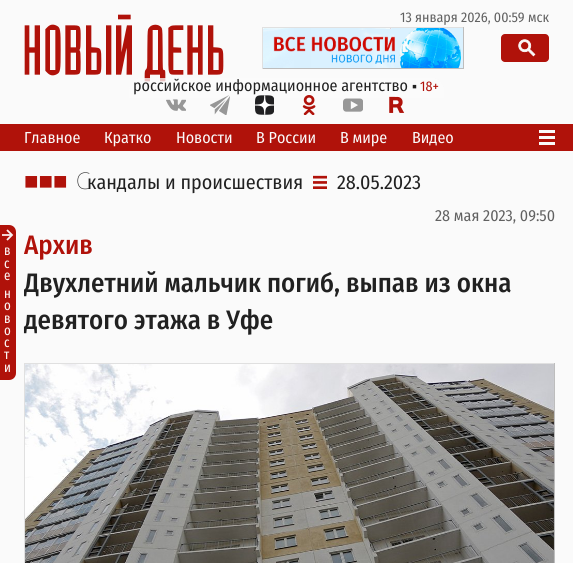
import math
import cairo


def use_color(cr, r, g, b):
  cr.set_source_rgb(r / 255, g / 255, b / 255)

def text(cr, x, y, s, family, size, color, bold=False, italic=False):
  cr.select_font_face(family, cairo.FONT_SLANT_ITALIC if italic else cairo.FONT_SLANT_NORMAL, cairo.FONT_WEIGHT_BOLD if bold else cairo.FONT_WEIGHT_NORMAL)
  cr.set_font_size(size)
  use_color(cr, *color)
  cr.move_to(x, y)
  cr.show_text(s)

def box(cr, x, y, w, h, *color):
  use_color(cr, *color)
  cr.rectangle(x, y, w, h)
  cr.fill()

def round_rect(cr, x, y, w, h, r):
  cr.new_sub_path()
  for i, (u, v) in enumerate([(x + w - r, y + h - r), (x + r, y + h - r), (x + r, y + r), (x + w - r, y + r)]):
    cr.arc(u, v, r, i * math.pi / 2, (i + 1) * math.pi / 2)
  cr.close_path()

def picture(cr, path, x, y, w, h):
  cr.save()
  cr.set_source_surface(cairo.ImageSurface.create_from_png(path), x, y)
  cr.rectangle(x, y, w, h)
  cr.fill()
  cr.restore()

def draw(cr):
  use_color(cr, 250, 250, 250)
  cr.paint()
  picture(cr, "img_01.png", 24, 14, 200, 68)
  box(cr, 262, 27, 202, 1, 224, 224, 224)
  box(cr, 463, 27, 1, 42, 189, 189, 189)
  box(cr, 262, 68, 202, 1, 189, 189, 189)
  box(cr, 262, 27, 1, 42, 224, 224, 224)
  picture(cr, "img_02.png", 263, 28, 200, 40)
  use_color(cr, 176, 18, 10)
  round_rect(cr, 501, 34, 48, 28, 4)
  cr.fill()
  picture(cr, "img_03.png", 518, 39, 18, 18)
  picture(cr, "img_04.png", 166, 99, 20, 12)
  cr.set_source_rgba(0.98, 0.98, 0.98, 0.75)
  cr.new_path()
  cr.move_to(141, 78)
  cr.line_to(432, 78)
  cr.curve_to(438.5, 78, 444, 83.5, 444, 90)
  cr.line_to(444, 98)
  cr.line_to(129, 98)
  cr.line_to(129, 90)
  cr.curve_to(129, 83.5, 134.5, 78, 141, 78)
  cr.close_path()
  cr.fill()
  picture(cr, "img_05.png", 210, 95, 20, 20)
  picture(cr, "img_06.png", 255, 95, 19, 20)
  picture(cr, "img_07.png", 302, 95, 14, 20)
  picture(cr, "img_08.png", 343, 98, 20, 14)
  picture(cr, "img_09.png", 389, 96, 16, 17)
  box(cr, 0, 124, 573, 27, 176, 18, 10)
  picture(cr, "img_10.png", 539, 130, 16, 15)
  cr.new_path()
  cr.move_to(0, 225)
  cr.line_to(9, 225)
  cr.curve_to(13, 225, 16, 228, 16, 232)
  cr.line_to(16, 373)
  cr.curve_to(16, 377, 13, 380, 9, 380)
  cr.line_to(0, 380)
  cr.close_path()
  cr.fill()
  cr.new_path()
  cr.move_to(7, 230)
  cr.line_to(12, 235)
  cr.line_to(7, 240)
  cr.move_to(10.5, 235)
  cr.line_to(2, 235)
  use_color(cr, 251, 243, 243)
  cr.set_line_width(1.8)
  cr.stroke()
  picture(cr, "img_11.png", 313, 175, 14, 14)
  box(cr, 24, 363, 531, 1, 224, 224, 224)
  box(cr, 554, 363, 1, 200, 189, 189, 189)
  box(cr, 24, 363, 1, 200, 224, 224, 224)
  picture(cr, "img_12.png", 25, 364, 529, 199)
  text(cr, 400, 22, "13 января 2026, 00:59 мск", "Fira Sans Condensed", 14, (97, 97, 97))
  text(cr, 133, 91, "российское информационное агентство", "Fira Sans Condensed", 16, (33, 33, 33))
  text(cr, 412, 91, "▪", "Liberation Sans", 14, (33, 33, 33))
  text(cr, 420, 91, "18+", "Fira Sans Condensed", 14, (176, 18, 10))
  text(cr, 24, 143, "Главное", "Fira Sans Condensed", 16, (250, 250, 250))
  text(cr, 104, 143, "Кратко", "Fira Sans Condensed", 16, (250, 250, 250))
  text(cr, 176, 143, "Новости", "Fira Sans Condensed", 16, (250, 250, 250))
  text(cr, 256, 143, "В России", "Fira Sans Condensed", 16, (250, 250, 250))
  text(cr, 340, 143, "В мире", "Fira Sans Condensed", 16, (250, 250, 250))
  text(cr, 412, 143, "Видео", "Fira Sans Condensed", 16, (250, 250, 250))
  text(cr, 4, 255, "в", "Fira Sans Extra Condensed", 14, (251, 243, 243))
  text(cr, 4, 268, "с", "Fira Sans Extra Condensed", 14, (251, 243, 243))
  text(cr, 4, 280, "е", "Fira Sans Extra Condensed", 14, (251, 243, 243))
  text(cr, 4, 298, "н", "Fira Sans Extra Condensed", 14, (251, 243, 243))
  text(cr, 4, 310, "о", "Fira Sans Extra Condensed", 14, (251, 243, 243))
  text(cr, 4, 323, "в", "Fira Sans Extra Condensed", 14, (251, 243, 243))
  text(cr, 4, 335, "о", "Fira Sans Extra Condensed", 14, (251, 243, 243))
  text(cr, 4, 347, "с", "Fira Sans Extra Condensed", 14, (251, 243, 243))
  text(cr, 4, 359, "т", "Fira Sans Extra Condensed", 14, (251, 243, 243))
  text(cr, 4, 372, "и", "Fira Sans Extra Condensed", 14, (251, 243, 243))
  text(cr, 24, 189, "■■■", "Liberation Sans", 24, (176, 18, 10))
  text(cr, 76, 189, "С", "Noto Sans Thin", 23, (33, 33, 33))
  text(cr, 87, 189, "кандалы и происшествия", "Fira Sans Condensed", 20, (33, 33, 33))
  text(cr, 337, 189, "28.05.2023", "Fira Sans Condensed", 20, (33, 33, 33))
  text(cr, 435, 221, "28 мая 2023, 09:50", "Fira Sans Condensed", 16, (97, 97, 97))
  text(cr, 24, 254, "Архив", "Fira Sans Condensed Medium", 26.7, (176, 18, 10))
  cr.save()
  cr.rectangle(24, 227, 531, 112)
  cr.clip()
  text(cr, 24, 292, "Двухлетний мальчик погиб, выпав из окна", "Fira Sans Condensed Medium", 26.7, (33, 33, 33))
  cr.restore()
  text(cr, 24, 329, "девятого этажа в Уфе", "Fira Sans Condensed Medium", 26.7, (33, 33, 33))


surface = cairo.ImageSurface(cairo.FORMAT_RGB24, 573, 563)
cr = cairo.Context(surface)
options = cairo.FontOptions()
options.set_hint_metrics(cairo.HINT_METRICS_OFF)
options.set_hint_style(cairo.HINT_STYLE_NONE)
cr.set_font_options(options)
cr.set_miter_limit(4)
draw(cr)
surface.write_to_png("out.png")
